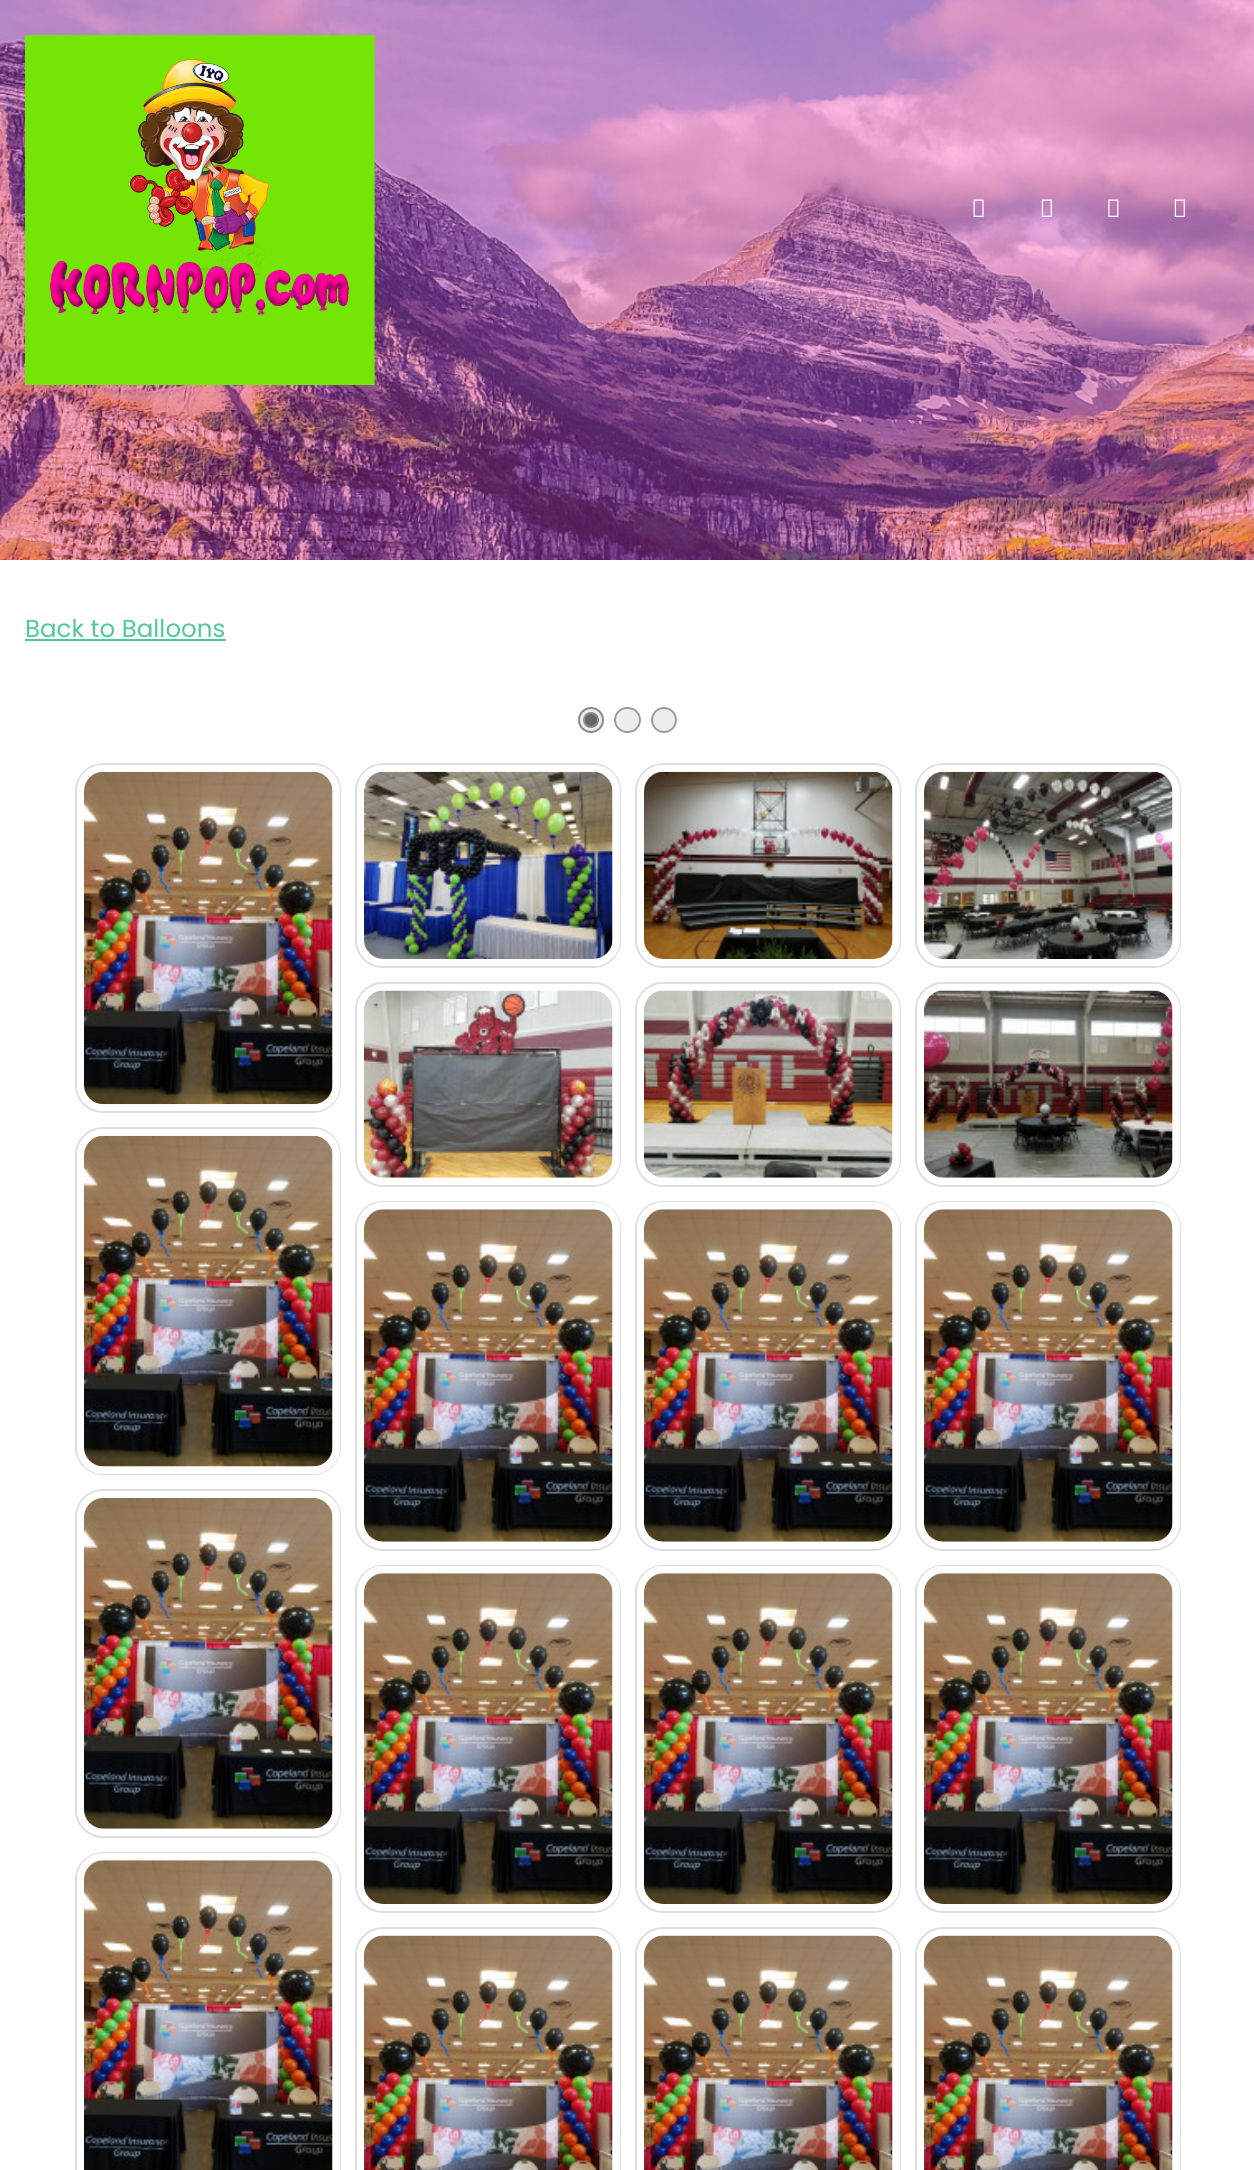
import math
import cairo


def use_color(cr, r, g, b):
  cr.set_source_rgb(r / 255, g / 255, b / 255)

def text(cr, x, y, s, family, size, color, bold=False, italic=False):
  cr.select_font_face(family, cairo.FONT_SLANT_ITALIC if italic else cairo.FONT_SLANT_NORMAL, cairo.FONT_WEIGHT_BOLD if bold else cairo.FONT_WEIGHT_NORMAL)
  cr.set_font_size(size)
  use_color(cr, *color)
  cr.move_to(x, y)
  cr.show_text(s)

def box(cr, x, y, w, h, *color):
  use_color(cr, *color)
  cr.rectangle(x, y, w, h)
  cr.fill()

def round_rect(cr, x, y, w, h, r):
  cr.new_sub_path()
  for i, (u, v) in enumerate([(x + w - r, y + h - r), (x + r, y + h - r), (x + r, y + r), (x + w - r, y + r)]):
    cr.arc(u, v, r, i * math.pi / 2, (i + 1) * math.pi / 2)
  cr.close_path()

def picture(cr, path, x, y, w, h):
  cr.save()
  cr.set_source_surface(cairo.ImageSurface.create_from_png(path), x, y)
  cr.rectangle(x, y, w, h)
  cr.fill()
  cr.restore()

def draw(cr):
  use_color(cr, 255, 255, 255)
  cr.paint()
  picture(cr, "img_01.png", 0, 0, 1254, 560)
  picture(cr, "img_02.png", 25, 35, 350, 350)
  picture(cr, "img_03.png", 973, 199, 11, 18)
  picture(cr, "img_04.png", 1041, 199, 11, 18)
  picture(cr, "img_05.png", 1108, 199, 11, 18)
  picture(cr, "img_06.png", 1174, 199, 11, 18)
  box(cr, 25, 639, 201, 2, 79, 201, 154)
  use_color(cr, 238, 238, 238)
  cr.arc(591, 720, 12, 0, 2 * math.pi)
  cr.fill_preserve()
  use_color(cr, 136, 136, 136)
  cr.stroke()
  use_color(cr, 102, 102, 102)
  cr.arc(591, 720, 7, 0, 2 * math.pi)
  cr.fill_preserve()
  use_color(cr, 136, 136, 136)
  cr.stroke()
  use_color(cr, 238, 238, 238)
  round_rect(cr, 615, 708, 25, 24, 12)
  cr.fill_preserve()
  use_color(cr, 157, 157, 157)
  cr.stroke()
  use_color(cr, 238, 238, 238)
  cr.arc(664, 720, 12, 0, 2 * math.pi)
  cr.fill_preserve()
  use_color(cr, 157, 157, 157)
  cr.stroke()
  round_rect(cr, 76, 764, 264, 348, 27)
  use_color(cr, 221, 221, 221)
  cr.stroke()
  use_color(cr, 255, 255, 255)
  round_rect(cr, 80.5, 768.5, 256, 339, 22.5)
  cr.fill_preserve()
  cr.set_line_width(7)
  cr.stroke()
  picture(cr, "img_07.png", 84, 771, 249, 334)
  round_rect(cr, 356, 764, 264, 203, 27)
  use_color(cr, 221, 221, 221)
  cr.set_line_width(2)
  cr.stroke()
  use_color(cr, 255, 255, 255)
  round_rect(cr, 360.5, 768.5, 256, 194, 22.5)
  cr.fill_preserve()
  cr.set_line_width(7)
  cr.stroke()
  picture(cr, "img_08.png", 364, 771, 249, 188)
  round_rect(cr, 636, 764, 264, 203, 27)
  use_color(cr, 221, 221, 221)
  cr.set_line_width(2)
  cr.stroke()
  use_color(cr, 255, 255, 255)
  round_rect(cr, 640.5, 768.5, 256, 194, 22.5)
  cr.fill_preserve()
  cr.set_line_width(7)
  cr.stroke()
  picture(cr, "img_09.png", 644, 771, 249, 188)
  round_rect(cr, 916, 764, 264, 203, 27)
  use_color(cr, 221, 221, 221)
  cr.set_line_width(2)
  cr.stroke()
  use_color(cr, 255, 255, 255)
  round_rect(cr, 920.5, 768.5, 256, 194, 22.5)
  cr.fill_preserve()
  cr.set_line_width(7)
  cr.stroke()
  picture(cr, "img_10.png", 924, 771, 249, 188)
  round_rect(cr, 356, 983, 264, 203, 27)
  use_color(cr, 221, 221, 221)
  cr.set_line_width(2)
  cr.stroke()
  use_color(cr, 255, 255, 255)
  round_rect(cr, 360.5, 987.5, 256, 194, 22.5)
  cr.fill_preserve()
  cr.set_line_width(7)
  cr.stroke()
  picture(cr, "img_11.png", 364, 990, 249, 188)
  round_rect(cr, 636, 983, 264, 203, 27)
  use_color(cr, 221, 221, 221)
  cr.set_line_width(2)
  cr.stroke()
  use_color(cr, 255, 255, 255)
  round_rect(cr, 640.5, 987.5, 256, 194, 22.5)
  cr.fill_preserve()
  cr.set_line_width(7)
  cr.stroke()
  picture(cr, "img_12.png", 644, 990, 249, 188)
  round_rect(cr, 916, 983, 264, 203, 27)
  use_color(cr, 221, 221, 221)
  cr.set_line_width(2)
  cr.stroke()
  use_color(cr, 255, 255, 255)
  round_rect(cr, 920.5, 987.5, 256, 194, 22.5)
  cr.fill_preserve()
  cr.set_line_width(7)
  cr.stroke()
  picture(cr, "img_13.png", 924, 990, 249, 188)
  round_rect(cr, 76, 1128, 264, 346, 27)
  use_color(cr, 221, 221, 221)
  cr.set_line_width(2)
  cr.stroke()
  use_color(cr, 255, 255, 255)
  round_rect(cr, 80.5, 1132.5, 256, 338, 22.5)
  cr.fill_preserve()
  cr.set_line_width(7)
  cr.stroke()
  picture(cr, "img_14.png", 84, 1135, 249, 332)
  round_rect(cr, 356, 1202, 264, 348, 27)
  use_color(cr, 221, 221, 221)
  cr.set_line_width(2)
  cr.stroke()
  use_color(cr, 255, 255, 255)
  round_rect(cr, 360.5, 1205.5, 256, 340, 22.5)
  cr.fill_preserve()
  cr.set_line_width(7)
  cr.stroke()
  picture(cr, "img_15.png", 364, 1209, 249, 333)
  round_rect(cr, 636, 1202, 264, 348, 27)
  use_color(cr, 221, 221, 221)
  cr.set_line_width(2)
  cr.stroke()
  use_color(cr, 255, 255, 255)
  round_rect(cr, 640.5, 1205.5, 256, 340, 22.5)
  cr.fill_preserve()
  cr.set_line_width(7)
  cr.stroke()
  picture(cr, "img_15.png", 644, 1209, 249, 333)
  round_rect(cr, 916, 1202, 264, 348, 27)
  use_color(cr, 221, 221, 221)
  cr.set_line_width(2)
  cr.stroke()
  use_color(cr, 255, 255, 255)
  round_rect(cr, 920.5, 1205.5, 256, 340, 22.5)
  cr.fill_preserve()
  cr.set_line_width(7)
  cr.stroke()
  picture(cr, "img_16.png", 924, 1209, 249, 333)
  round_rect(cr, 76, 1490, 264, 347, 27)
  use_color(cr, 221, 221, 221)
  cr.set_line_width(2)
  cr.stroke()
  use_color(cr, 255, 255, 255)
  round_rect(cr, 80.5, 1494.5, 256, 338, 22.5)
  cr.fill_preserve()
  cr.set_line_width(7)
  cr.stroke()
  picture(cr, "img_17.png", 84, 1498, 249, 331)
  round_rect(cr, 356, 1566, 264, 346, 27)
  use_color(cr, 221, 221, 221)
  cr.set_line_width(2)
  cr.stroke()
  use_color(cr, 255, 255, 255)
  round_rect(cr, 360.5, 1569.5, 256, 338, 22.5)
  cr.fill_preserve()
  cr.set_line_width(7)
  cr.stroke()
  picture(cr, "img_18.png", 364, 1573, 249, 331)
  round_rect(cr, 636, 1566, 264, 346, 27)
  use_color(cr, 221, 221, 221)
  cr.set_line_width(2)
  cr.stroke()
  use_color(cr, 255, 255, 255)
  round_rect(cr, 640.5, 1569.5, 256, 338, 22.5)
  cr.fill_preserve()
  cr.set_line_width(7)
  cr.stroke()
  picture(cr, "img_18.png", 644, 1573, 249, 331)
  round_rect(cr, 916, 1566, 264, 346, 27)
  use_color(cr, 221, 221, 221)
  cr.set_line_width(2)
  cr.stroke()
  use_color(cr, 255, 255, 255)
  round_rect(cr, 920.5, 1569.5, 256, 338, 22.5)
  cr.fill_preserve()
  cr.set_line_width(7)
  cr.stroke()
  picture(cr, "img_19.png", 924, 1573, 249, 331)
  round_rect(cr, 76, 1853, 264, 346, 27)
  use_color(cr, 221, 221, 221)
  cr.set_line_width(2)
  cr.stroke()
  use_color(cr, 255, 255, 255)
  round_rect(cr, 80.5, 1856.5, 256, 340, 22.5)
  cr.fill_preserve()
  cr.set_line_width(7)
  cr.stroke()
  picture(cr, "img_20.png", 84, 1860, 249, 310)
  round_rect(cr, 356, 1928, 264, 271, 27)
  use_color(cr, 221, 221, 221)
  cr.set_line_width(2)
  cr.stroke()
  use_color(cr, 255, 255, 255)
  round_rect(cr, 360.5, 1932.5, 256, 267, 22.5)
  cr.fill_preserve()
  cr.set_line_width(7)
  cr.stroke()
  picture(cr, "img_21.png", 364, 1935, 249, 235)
  round_rect(cr, 636, 1928, 264, 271, 27)
  use_color(cr, 221, 221, 221)
  cr.set_line_width(2)
  cr.stroke()
  use_color(cr, 255, 255, 255)
  round_rect(cr, 640.5, 1932.5, 256, 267, 22.5)
  cr.fill_preserve()
  cr.set_line_width(7)
  cr.stroke()
  picture(cr, "img_21.png", 644, 1935, 249, 235)
  round_rect(cr, 916, 1928, 264, 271, 27)
  use_color(cr, 221, 221, 221)
  cr.set_line_width(2)
  cr.stroke()
  use_color(cr, 255, 255, 255)
  round_rect(cr, 920.5, 1932.5, 256, 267, 22.5)
  cr.fill_preserve()
  cr.set_line_width(7)
  cr.stroke()
  picture(cr, "img_21.png", 924, 1935, 249, 235)
  text(cr, 25, 637, "Back to Balloons", "Poppins", 24.5, (79, 201, 154))


surface = cairo.ImageSurface(cairo.FORMAT_RGB24, 1254, 2170)
cr = cairo.Context(surface)
options = cairo.FontOptions()
options.set_hint_metrics(cairo.HINT_METRICS_OFF)
options.set_hint_style(cairo.HINT_STYLE_NONE)
cr.set_font_options(options)
cr.set_miter_limit(4)
draw(cr)
surface.write_to_png("out.png")
